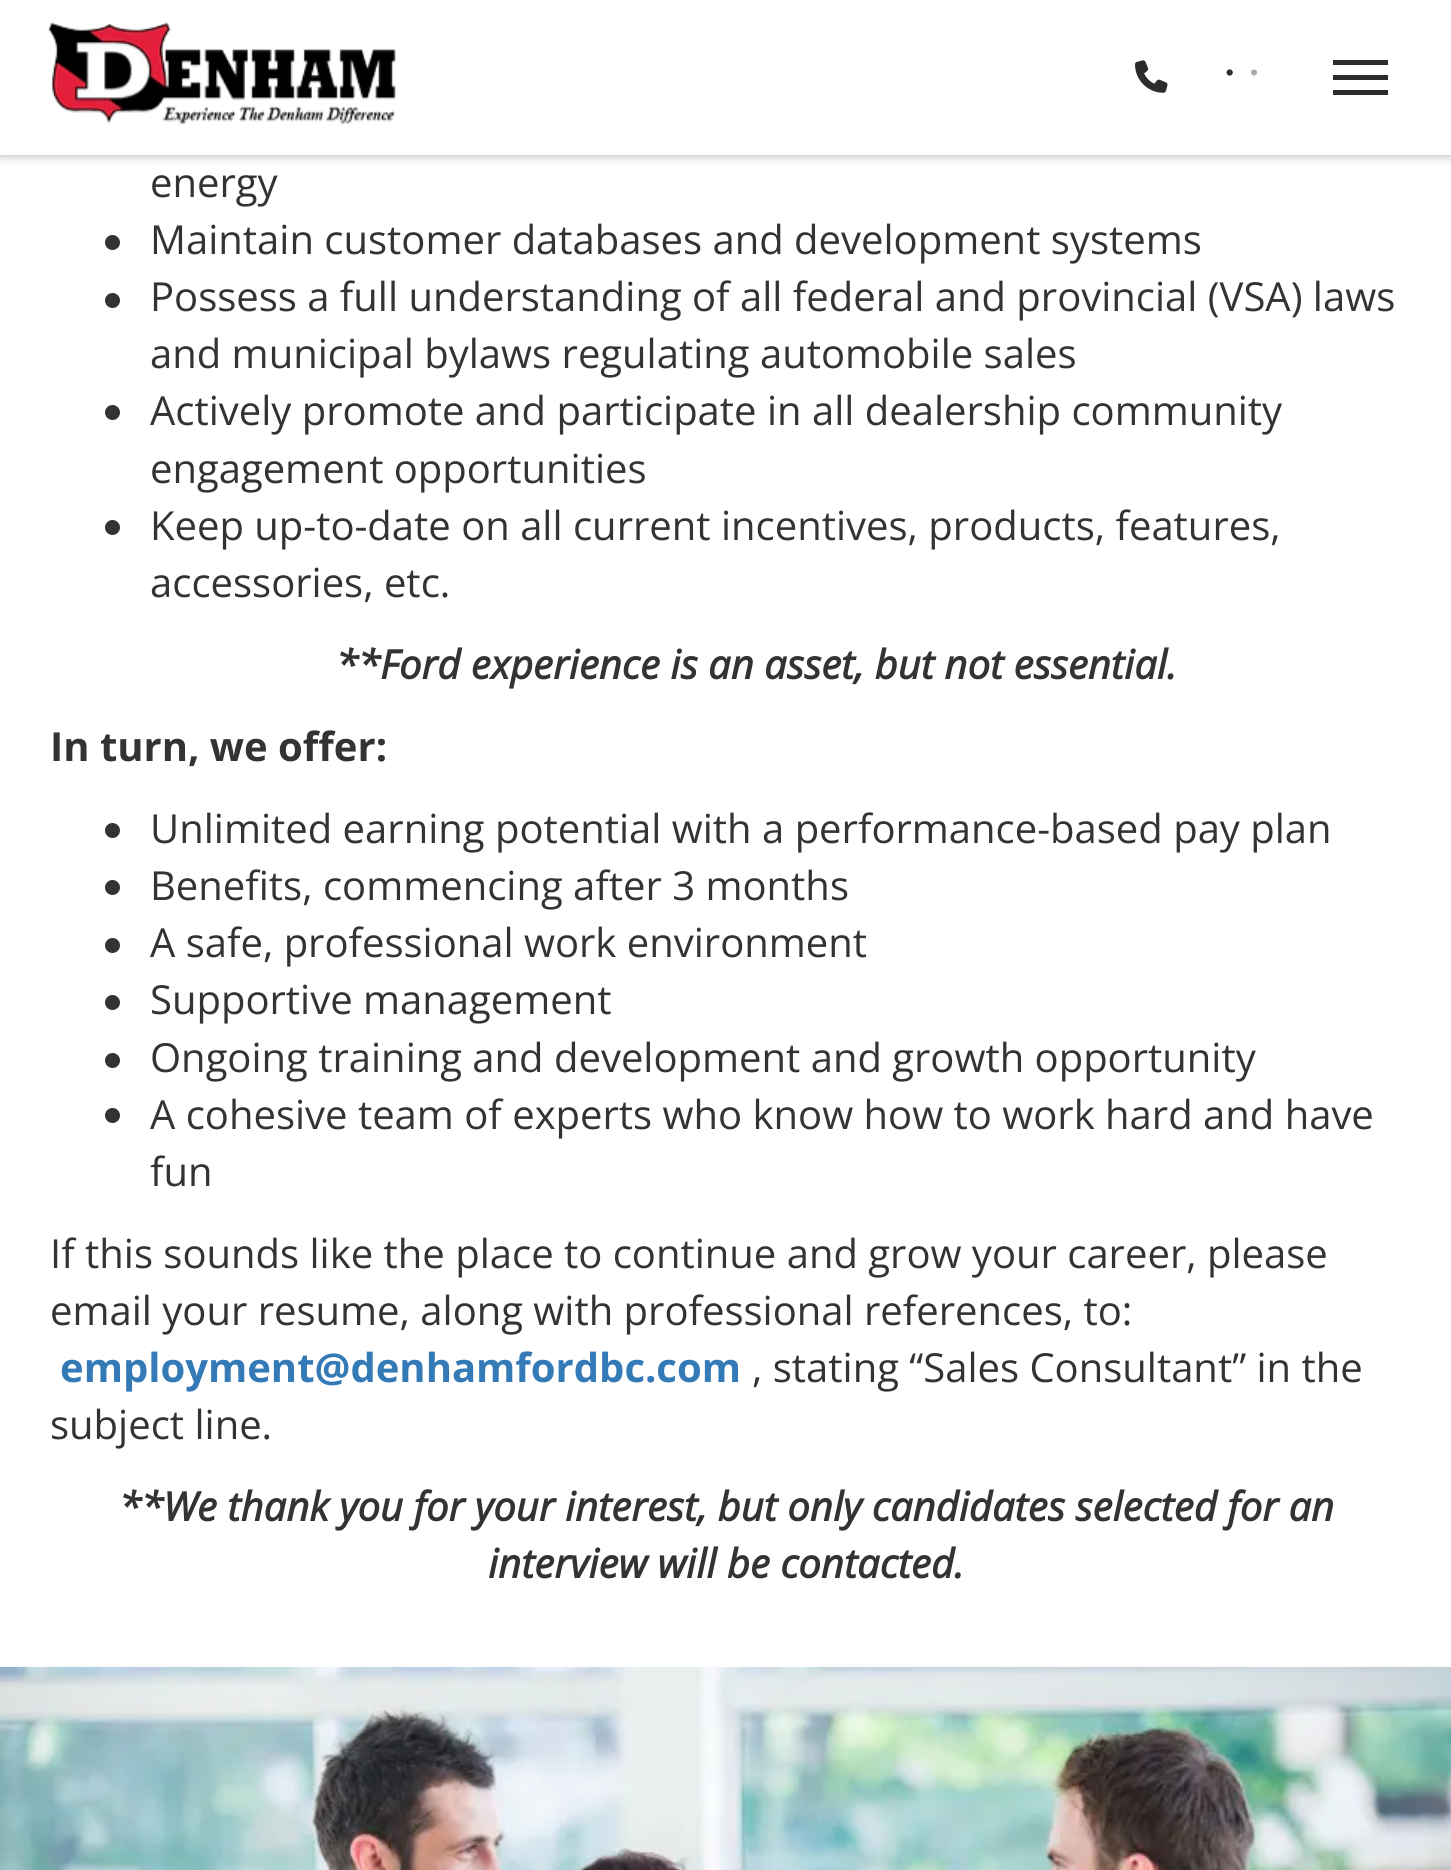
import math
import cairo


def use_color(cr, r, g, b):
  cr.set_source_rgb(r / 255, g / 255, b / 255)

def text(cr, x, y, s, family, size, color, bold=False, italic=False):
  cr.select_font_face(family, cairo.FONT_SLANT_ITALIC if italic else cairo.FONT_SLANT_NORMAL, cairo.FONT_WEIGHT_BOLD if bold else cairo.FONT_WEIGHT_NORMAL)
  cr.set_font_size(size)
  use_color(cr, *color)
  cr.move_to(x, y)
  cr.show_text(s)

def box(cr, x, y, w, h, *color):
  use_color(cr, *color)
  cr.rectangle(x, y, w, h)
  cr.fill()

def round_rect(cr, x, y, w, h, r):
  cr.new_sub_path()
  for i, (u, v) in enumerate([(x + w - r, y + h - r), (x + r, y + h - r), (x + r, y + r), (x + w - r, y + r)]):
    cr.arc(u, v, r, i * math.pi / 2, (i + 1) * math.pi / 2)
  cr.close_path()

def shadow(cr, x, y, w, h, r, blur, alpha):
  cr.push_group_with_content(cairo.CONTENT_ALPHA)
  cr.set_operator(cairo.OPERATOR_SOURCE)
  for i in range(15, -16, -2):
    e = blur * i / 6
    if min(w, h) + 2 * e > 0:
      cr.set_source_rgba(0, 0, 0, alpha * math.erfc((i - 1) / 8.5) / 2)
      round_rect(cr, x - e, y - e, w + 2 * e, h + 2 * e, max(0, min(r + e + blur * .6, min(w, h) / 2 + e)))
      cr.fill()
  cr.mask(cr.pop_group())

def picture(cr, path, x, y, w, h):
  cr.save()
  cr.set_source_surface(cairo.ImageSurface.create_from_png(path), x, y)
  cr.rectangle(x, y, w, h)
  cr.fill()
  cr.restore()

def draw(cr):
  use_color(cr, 255, 255, 255)
  cr.paint()
  use_color(cr, 0, 0, 0)
  shadow(cr, 0, 0, 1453, 155, 0, 6, 0.3)
  box(cr, 0, 0, 1451, 155, 255, 255, 255)
  picture(cr, "img_01.png", 47, 22, 349, 103)
  picture(cr, "img_02.png", 1135, 60, 33, 33)
  picture(cr, "img_03.png", 1226, 69, 7, 7)
  picture(cr, "img_04.png", 1226, 69, 32, 7)
  box(cr, 1333, 60, 55, 5, 44, 44, 44)
  box(cr, 1333, 75, 55, 5, 44, 44, 44)
  box(cr, 1333, 90, 55, 5, 44, 44, 44)
  use_color(cr, 51, 51, 51)
  cr.arc(112.5, 242.5, 7.5, 0, 2 * math.pi)
  cr.fill()
  cr.arc(112.5, 300.5, 7.5, 0, 2 * math.pi)
  cr.fill()
  cr.arc(112.5, 412.5, 7.5, 0, 2 * math.pi)
  cr.fill()
  cr.arc(112.5, 527.5, 7.5, 0, 2 * math.pi)
  cr.fill()
  cr.arc(112.5, 830.5, 7.5, 0, 2 * math.pi)
  cr.fill()
  cr.arc(112.5, 887.5, 7.5, 0, 2 * math.pi)
  cr.fill()
  cr.arc(112.5, 945.5, 7.5, 0, 2 * math.pi)
  cr.fill()
  cr.arc(112.5, 1002.5, 7.5, 0, 2 * math.pi)
  cr.fill()
  cr.arc(112.5, 1060.5, 7.5, 0, 2 * math.pi)
  cr.fill()
  cr.arc(112.5, 1115.5, 7.5, 0, 2 * math.pi)
  cr.fill()
  picture(cr, "img_05.png", 0, 1667, 1451, 203)
  text(cr, 150, 197, "energy", "Open Sans", 40, (51, 51, 51))
  text(cr, 150, 254, "Maintain customer databases and development systems", "Open Sans", 40, (51, 51, 51))
  text(cr, 150, 311, "Possess a full understanding of all federal and provincial (VSA) laws", "Open Sans", 40, (51, 51, 51))
  text(cr, 150, 368, "and municipal bylaws regulating automobile sales", "Open Sans", 40, (51, 51, 51))
  text(cr, 150, 425, "Actively promote and participate in all dealership community", "Open Sans", 40, (51, 51, 51))
  text(cr, 150, 483, "engagement opportunities", "Open Sans", 40, (51, 51, 51))
  text(cr, 150, 540, "Keep up-to-date on all current incentives, products, features,", "Open Sans", 40, (51, 51, 51))
  text(cr, 150, 597, "accessories, etc.", "Open Sans", 40, (51, 51, 51))
  text(cr, 336, 679, "**Ford experience is an asset, but not essential.", "Open Sans", 40, (51, 51, 51), bold=True, italic=True)
  text(cr, 50, 761, "In turn, we offer:", "Open Sans", 40, (51, 51, 51), bold=True)
  text(cr, 150, 843, "Unlimited earning potential with a performance-based pay plan", "Open Sans", 40, (51, 51, 51))
  text(cr, 150, 900, "Benefits, commencing after 3 months", "Open Sans", 40, (51, 51, 51))
  text(cr, 150, 957, "A safe, professional work environment", "Open Sans", 40, (51, 51, 51))
  text(cr, 150, 1014, "Supportive management", "Open Sans", 40, (51, 51, 51))
  text(cr, 150, 1072, "Ongoing training and development and growth opportunity", "Open Sans", 40, (51, 51, 51))
  text(cr, 150, 1129, "A cohesive team of experts who know how to work hard and have", "Open Sans", 40, (51, 51, 51))
  text(cr, 150, 1186, "fun", "Open Sans", 40, (51, 51, 51))
  text(cr, 50, 1268, "If this sounds like the place to continue and grow your career, please", "Open Sans", 40, (51, 51, 51))
  text(cr, 50, 1325, "email your resume, along with professional references, to:", "Open Sans", 40, (51, 51, 51))
  text(cr, 60, 1382, "employment@denhamfordbc.com", "Open Sans", 40, (51, 122, 183), bold=True)
  text(cr, 752, 1382, ", stating “Sales Consultant” in the", "Open Sans", 40, (51, 51, 51))
  text(cr, 50, 1439, "subject line.", "Open Sans", 40, (51, 51, 51))
  text(cr, 119, 1521, "**We thank you for your interest, but only candidates selected for an", "Open Sans", 40, (51, 51, 51), bold=True, italic=True)
  text(cr, 488, 1578, "interview will be contacted.", "Open Sans", 40, (51, 51, 51), bold=True, italic=True)


surface = cairo.ImageSurface(cairo.FORMAT_RGB24, 1451, 1870)
cr = cairo.Context(surface)
options = cairo.FontOptions()
options.set_hint_metrics(cairo.HINT_METRICS_OFF)
options.set_hint_style(cairo.HINT_STYLE_NONE)
cr.set_font_options(options)
cr.set_miter_limit(4)
draw(cr)
surface.write_to_png("out.png")
